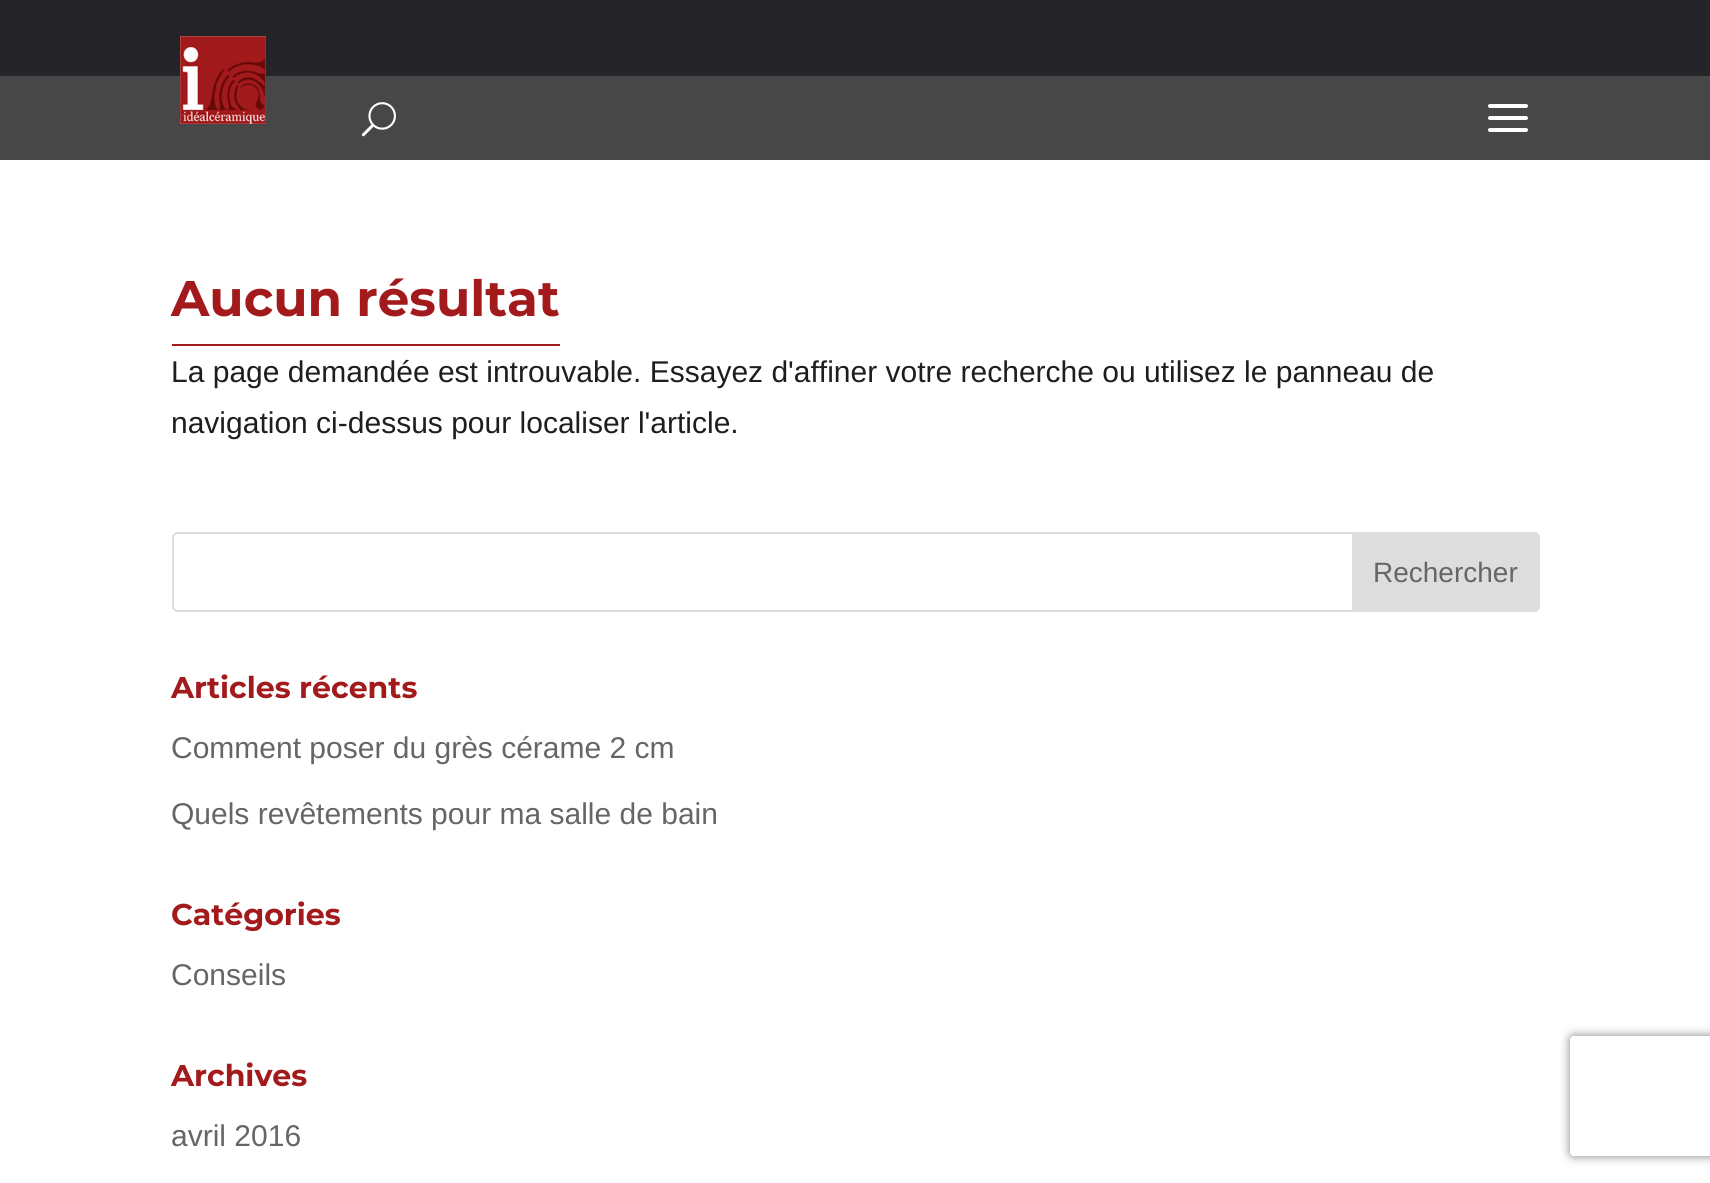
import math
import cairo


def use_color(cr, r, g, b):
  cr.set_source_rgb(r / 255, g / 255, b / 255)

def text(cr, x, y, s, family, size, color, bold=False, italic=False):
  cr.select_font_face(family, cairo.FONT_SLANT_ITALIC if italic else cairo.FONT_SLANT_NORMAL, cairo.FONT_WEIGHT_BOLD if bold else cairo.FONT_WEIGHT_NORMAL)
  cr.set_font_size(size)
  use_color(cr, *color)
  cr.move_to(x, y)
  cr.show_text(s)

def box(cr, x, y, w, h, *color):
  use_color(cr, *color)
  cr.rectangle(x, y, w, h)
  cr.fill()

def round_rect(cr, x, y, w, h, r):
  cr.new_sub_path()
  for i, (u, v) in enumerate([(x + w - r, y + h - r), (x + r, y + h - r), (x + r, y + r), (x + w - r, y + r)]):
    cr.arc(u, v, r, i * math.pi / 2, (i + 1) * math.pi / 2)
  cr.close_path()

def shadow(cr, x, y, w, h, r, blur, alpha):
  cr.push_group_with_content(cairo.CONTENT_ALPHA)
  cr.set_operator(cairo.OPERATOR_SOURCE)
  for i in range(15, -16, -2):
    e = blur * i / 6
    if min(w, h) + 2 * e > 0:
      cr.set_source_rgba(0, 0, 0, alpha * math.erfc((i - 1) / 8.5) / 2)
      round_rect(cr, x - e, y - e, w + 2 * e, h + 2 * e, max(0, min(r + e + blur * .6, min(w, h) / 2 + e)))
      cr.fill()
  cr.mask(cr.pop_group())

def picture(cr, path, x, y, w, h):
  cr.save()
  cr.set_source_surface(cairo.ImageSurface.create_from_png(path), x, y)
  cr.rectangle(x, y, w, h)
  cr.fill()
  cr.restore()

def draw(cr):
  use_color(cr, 255, 255, 255)
  cr.paint()
  box(cr, 0, 0, 1710, 76, 36, 36, 41)
  box(cr, 0, 76, 1710, 84, 71, 71, 71)
  picture(cr, "img_01.png", 180, 36, 86, 88)
  picture(cr, "img_02.png", 361, 102, 35, 35)
  picture(cr, "img_03.png", 1488, 104, 40, 28)
  box(cr, 172, 344, 388, 2, 162, 26, 28)
  round_rect(cr, 173, 533, 1366, 78, 5)
  use_color(cr, 221, 221, 221)
  cr.stroke()
  cr.new_path()
  cr.move_to(1353, 533)
  cr.line_to(1534, 533)
  cr.curve_to(1537, 533, 1539, 535, 1539, 538)
  cr.line_to(1539, 606)
  cr.curve_to(1539, 609, 1537, 611, 1534, 611)
  cr.line_to(1353, 611)
  cr.close_path()
  cr.fill_preserve()
  cr.stroke()
  cr.save()
  cr.set_fill_rule(cairo.FILL_RULE_EVEN_ODD)
  cr.new_path()
  cr.move_to(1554, 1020)
  cr.line_to(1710, 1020)
  cr.line_to(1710, 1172)
  cr.line_to(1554, 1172)
  cr.close_path()
  cr.move_to(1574, 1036)
  cr.line_to(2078, 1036)
  cr.curve_to(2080, 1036, 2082, 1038, 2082, 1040)
  cr.line_to(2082, 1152)
  cr.curve_to(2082, 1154, 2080, 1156, 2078, 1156)
  cr.line_to(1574, 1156)
  cr.curve_to(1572, 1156, 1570, 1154, 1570, 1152)
  cr.line_to(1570, 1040)
  cr.curve_to(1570, 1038, 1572, 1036, 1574, 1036)
  cr.close_path()
  cr.clip()
  use_color(cr, 128, 128, 128)
  shadow(cr, 1570, 1036, 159, 120, 4, 5, 1)
  cr.restore()
  text(cr, 171, 316, "Aucun résultat", "Montserrat", 50, (162, 26, 28), bold=True)
  text(cr, 171, 382, "La page demandée est introuvable. Essayez d'affiner votre recherche ou utilisez le panneau de", "Liberation Sans", 30, (30, 30, 30))
  text(cr, 171, 433, "navigation ci-dessus pour localiser l'article.", "Liberation Sans", 30, (30, 30, 30))
  text(cr, 1373, 582, "Rechercher", "Liberation Sans", 28, (102, 102, 102))
  text(cr, 171, 698, "Articles récents", "Montserrat", 30, (162, 26, 28), bold=True)
  text(cr, 171, 758, "Comment poser du grès cérame 2 cm", "Liberation Sans", 30, (102, 102, 102))
  text(cr, 171, 824, "Quels revêtements pour ma salle de bain", "Liberation Sans", 30, (102, 102, 102))
  text(cr, 171, 925, "Catégories", "Montserrat", 30, (162, 26, 28), bold=True)
  text(cr, 171, 985, "Conseils", "Liberation Sans", 30, (102, 102, 102))
  text(cr, 171, 1086, "Archives", "Montserrat", 30, (162, 26, 28), bold=True)
  text(cr, 171, 1146, "avril 2016", "Liberation Sans", 30, (102, 102, 102))


surface = cairo.ImageSurface(cairo.FORMAT_RGB24, 1710, 1183)
cr = cairo.Context(surface)
options = cairo.FontOptions()
options.set_hint_metrics(cairo.HINT_METRICS_OFF)
options.set_hint_style(cairo.HINT_STYLE_NONE)
cr.set_font_options(options)
cr.set_miter_limit(4)
draw(cr)
surface.write_to_png("out.png")
